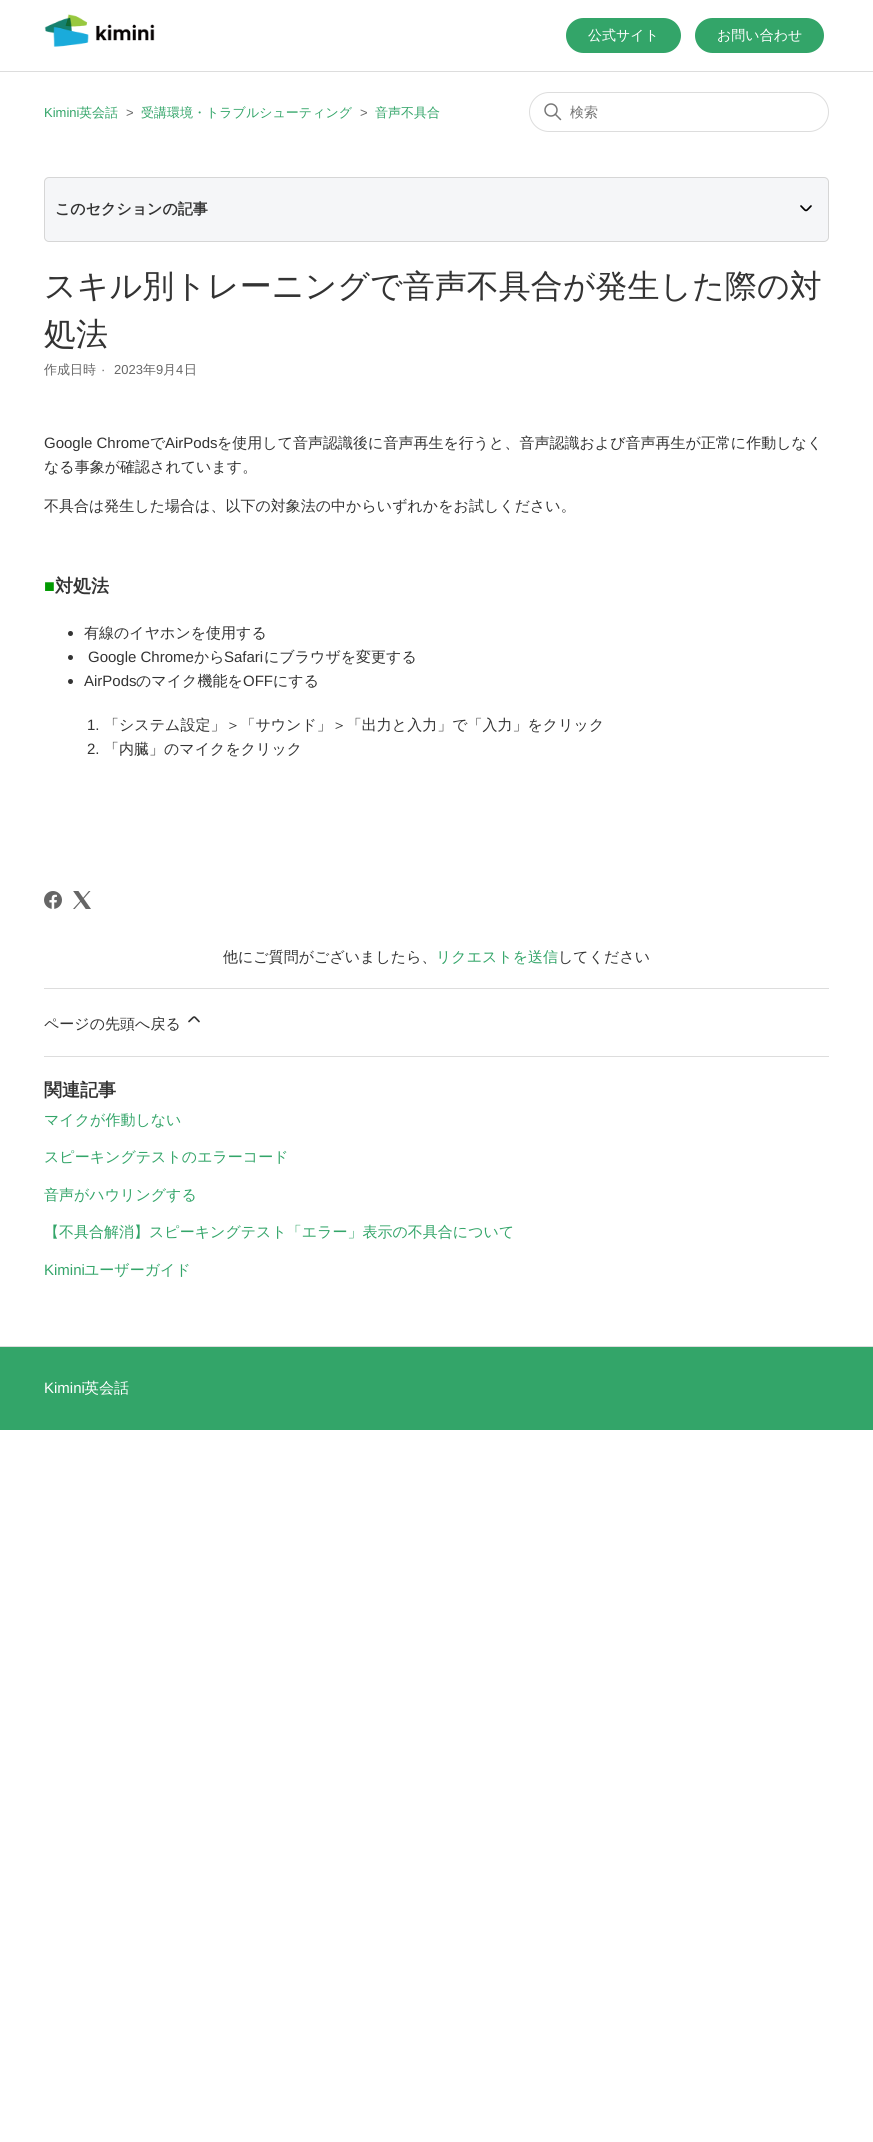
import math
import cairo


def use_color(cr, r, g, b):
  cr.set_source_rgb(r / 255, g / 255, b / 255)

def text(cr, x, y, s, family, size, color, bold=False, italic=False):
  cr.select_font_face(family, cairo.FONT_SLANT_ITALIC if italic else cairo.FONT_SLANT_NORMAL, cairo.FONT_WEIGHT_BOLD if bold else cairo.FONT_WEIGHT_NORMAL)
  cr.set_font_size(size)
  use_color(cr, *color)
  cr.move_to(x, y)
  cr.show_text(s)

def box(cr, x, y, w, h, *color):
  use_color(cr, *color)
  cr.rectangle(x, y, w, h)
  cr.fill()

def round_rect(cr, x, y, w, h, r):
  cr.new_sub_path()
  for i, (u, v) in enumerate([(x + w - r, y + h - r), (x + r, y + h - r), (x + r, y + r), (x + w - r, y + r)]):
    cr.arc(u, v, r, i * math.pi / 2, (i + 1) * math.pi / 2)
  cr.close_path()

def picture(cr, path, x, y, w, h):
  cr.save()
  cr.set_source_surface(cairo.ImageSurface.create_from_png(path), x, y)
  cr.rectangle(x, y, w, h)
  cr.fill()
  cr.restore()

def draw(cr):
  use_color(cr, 255, 255, 255)
  cr.paint()
  picture(cr, "img_01.png", 44, 14, 111, 33)
  use_color(cr, 51, 165, 105)
  round_rect(cr, 566, 18, 115, 35, 17.5)
  cr.fill()
  round_rect(cr, 695, 18, 129, 35, 17.5)
  cr.fill()
  box(cr, 0, 71, 873, 1, 221, 221, 221)
  round_rect(cr, 529.5, 92.5, 299, 39, 19.5)
  cr.set_line_width(1)
  cr.stroke()
  picture(cr, "img_02.png", 544, 103, 18, 18)
  use_color(cr, 245, 246, 248)
  round_rect(cr, 44.5, 177.5, 784, 64, 4.5)
  cr.fill_preserve()
  use_color(cr, 214, 214, 214)
  cr.stroke()
  cr.new_path()
  cr.move_to(801, 206)
  cr.curve_to(807, 212, 805, 212, 811, 206)
  use_color(cr, 0, 0, 0)
  cr.set_line_width(1.7)
  cr.set_line_cap(cairo.LINE_CAP_ROUND)
  cr.stroke()
  use_color(cr, 51, 51, 51)
  cr.arc(70.5, 633.5, 2.5, 0, 2 * math.pi)
  cr.fill()
  cr.arc(70.5, 657.5, 2.5, 0, 2 * math.pi)
  cr.fill()
  cr.arc(70.5, 681.5, 2.5, 0, 2 * math.pi)
  cr.fill()
  picture(cr, "img_03.png", 44, 891, 18, 18)
  picture(cr, "img_04.png", 73, 891, 18, 18)
  box(cr, 44, 988, 785, 1, 221, 221, 221)
  cr.new_path()
  cr.move_to(199, 1021.5)
  cr.curve_to(193, 1015.5, 195.5, 1015.5, 189, 1021.5)
  use_color(cr, 51, 51, 51)
  cr.stroke()
  box(cr, 44, 1056, 785, 1, 221, 221, 221)
  box(cr, 0, 1347, 873, 83, 51, 165, 105)
  box(cr, 0, 1346, 873, 1, 221, 221, 221)
  text(cr, 588, 40, "公式サイト", "WenQuanYi Zen Hei Medium", 14, (255, 255, 255))
  text(cr, 717, 40, "お問い合わせ", "WenQuanYi Zen Hei Medium", 14, (255, 255, 255))
  text(cr, 44, 117, "Kimini", "Liberation Sans", 13, (51, 165, 105))
  text(cr, 79, 117, "英会話", "WenQuanYi Zen Hei Medium", 13, (51, 165, 105))
  text(cr, 126, 117, ">", "Liberation Sans", 13, (102, 102, 102))
  text(cr, 141, 117, "受講環境・トラブルシューティング", "WenQuanYi Zen Hei Medium", 13, (51, 165, 105))
  text(cr, 360, 117, ">", "Liberation Sans", 13, (102, 102, 102))
  text(cr, 375, 117, "音声不具合", "WenQuanYi Zen Hei Medium", 13, (51, 165, 105))
  text(cr, 570, 117, "検索", "WenQuanYi Zen Hei Medium", 14, (117, 117, 117))
  text(cr, 55, 214, "このセクションの記事", "WenQuanYi Zen Hei", 15, (51, 51, 51), bold=True)
  text(cr, 44, 297, "スキル別トレーニングで音声不具合が発生した際の対", "WenQuanYi Zen Hei Medium", 32, (51, 51, 51))
  text(cr, 44, 345, "処法", "WenQuanYi Zen Hei Medium", 32, (51, 51, 51))
  text(cr, 44, 374, "作成日時", "WenQuanYi Zen Hei Medium", 13, (102, 102, 102))
  text(cr, 101, 374, "·", "Liberation Sans", 13, (102, 102, 102))
  text(cr, 114, 374, "2023", "Liberation Sans", 13, (102, 102, 102))
  text(cr, 143, 374, "年", "WenQuanYi Zen Hei Medium", 13, (102, 102, 102))
  text(cr, 156, 374, "9", "Liberation Sans", 13, (102, 102, 102))
  text(cr, 163, 374, "月", "WenQuanYi Zen Hei Medium", 13, (102, 102, 102))
  text(cr, 176, 374, "4", "Liberation Sans", 13, (102, 102, 102))
  text(cr, 184, 374, "日", "WenQuanYi Zen Hei Medium", 13, (102, 102, 102))
  text(cr, 44, 448, "Google Chrome", "Liberation Sans", 15, (51, 51, 51))
  text(cr, 150, 448, "で", "WenQuanYi Zen Hei Medium", 15, (51, 51, 51))
  text(cr, 165, 448, "AirPods", "Liberation Sans", 15, (51, 51, 51))
  text(cr, 217, 448, "を使用して音声認識後に音声再生を行うと、音声認識および音声再生が正常に作動しなく", "WenQuanYi Zen Hei Medium", 15, (51, 51, 51))
  text(cr, 44, 472, "なる事象が確認されています。", "WenQuanYi Zen Hei Medium", 15, (51, 51, 51))
  text(cr, 44, 511, "不具合は発生した場合は、以下の対象法の中からいずれかをお試しください。", "WenQuanYi Zen Hei Medium", 15, (51, 51, 51))
  text(cr, 44, 592, "■", "Liberation Sans", 18, (0, 153, 0), bold=True)
  text(cr, 55, 592, "対処法", "WenQuanYi Zen Hei", 18, (51, 51, 51), bold=True)
  text(cr, 84, 638, "有線のイヤホンを使用する", "WenQuanYi Zen Hei Medium", 15, (51, 51, 51))
  text(cr, 88, 662, "Google Chrome", "Liberation Sans", 15, (51, 51, 51))
  text(cr, 194, 662, "から", "WenQuanYi Zen Hei Medium", 15, (51, 51, 51))
  text(cr, 224, 662, "Safari", "Liberation Sans", 15, (51, 51, 51))
  text(cr, 264, 662, "にブラウザを変更する", "WenQuanYi Zen Hei Medium", 15, (51, 51, 51))
  text(cr, 84, 686, "AirPods", "Liberation Sans", 15, (51, 51, 51))
  text(cr, 136, 686, "のマイク機能を", "WenQuanYi Zen Hei Medium", 15, (51, 51, 51))
  text(cr, 243, 686, "OFF", "Liberation Sans", 15, (51, 51, 51))
  text(cr, 273, 686, "にする", "WenQuanYi Zen Hei Medium", 15, (51, 51, 51))
  text(cr, 87, 730, "1.", "Liberation Sans", 15, (51, 51, 51))
  text(cr, 104, 730, "「システム設定」＞「サウンド」＞「出力と入力」で「入力」をクリック", "WenQuanYi Zen Hei Medium", 15, (51, 51, 51))
  text(cr, 87, 754, "2.", "Liberation Sans", 15, (51, 51, 51))
  text(cr, 104, 754, "「内臓」のマイクをクリック", "WenQuanYi Zen Hei Medium", 15, (51, 51, 51))
  text(cr, 223, 962, "他にご質問がございましたら、", "WenQuanYi Zen Hei Medium", 15, (51, 51, 51))
  text(cr, 436, 962, "リクエストを送信", "WenQuanYi Zen Hei Medium", 15, (51, 165, 105))
  text(cr, 558, 962, "してください", "WenQuanYi Zen Hei Medium", 15, (51, 51, 51))
  text(cr, 44, 1029, "ページの先頭へ戻る", "WenQuanYi Zen Hei Medium", 15, (51, 51, 51))
  text(cr, 44, 1096, "関連記事", "WenQuanYi Zen Hei", 18, (51, 51, 51), bold=True)
  text(cr, 44, 1125, "マイクが作動しない", "WenQuanYi Zen Hei Medium", 15, (51, 165, 105))
  text(cr, 44, 1162, "スピーキングテストのエラーコード", "WenQuanYi Zen Hei Medium", 15, (51, 165, 105))
  text(cr, 44, 1200, "音声がハウリングする", "WenQuanYi Zen Hei Medium", 15, (51, 165, 105))
  text(cr, 44, 1237, "【不具合解消】スピーキングテスト「エラー」表示の不具合について", "WenQuanYi Zen Hei Medium", 15, (51, 165, 105))
  text(cr, 44, 1275, "Kimini", "Liberation Sans", 15, (51, 165, 105))
  text(cr, 84, 1275, "ユーザーガイド", "WenQuanYi Zen Hei Medium", 15, (51, 165, 105))
  text(cr, 44, 1393, "Kimini", "Liberation Sans", 15, (255, 255, 255))
  text(cr, 84, 1393, "英会話", "WenQuanYi Zen Hei Medium", 15, (255, 255, 255))


surface = cairo.ImageSurface(cairo.FORMAT_RGB24, 873, 2142)
cr = cairo.Context(surface)
options = cairo.FontOptions()
options.set_hint_metrics(cairo.HINT_METRICS_OFF)
options.set_hint_style(cairo.HINT_STYLE_NONE)
cr.set_font_options(options)
cr.set_miter_limit(4)
draw(cr)
surface.write_to_png("out.png")
